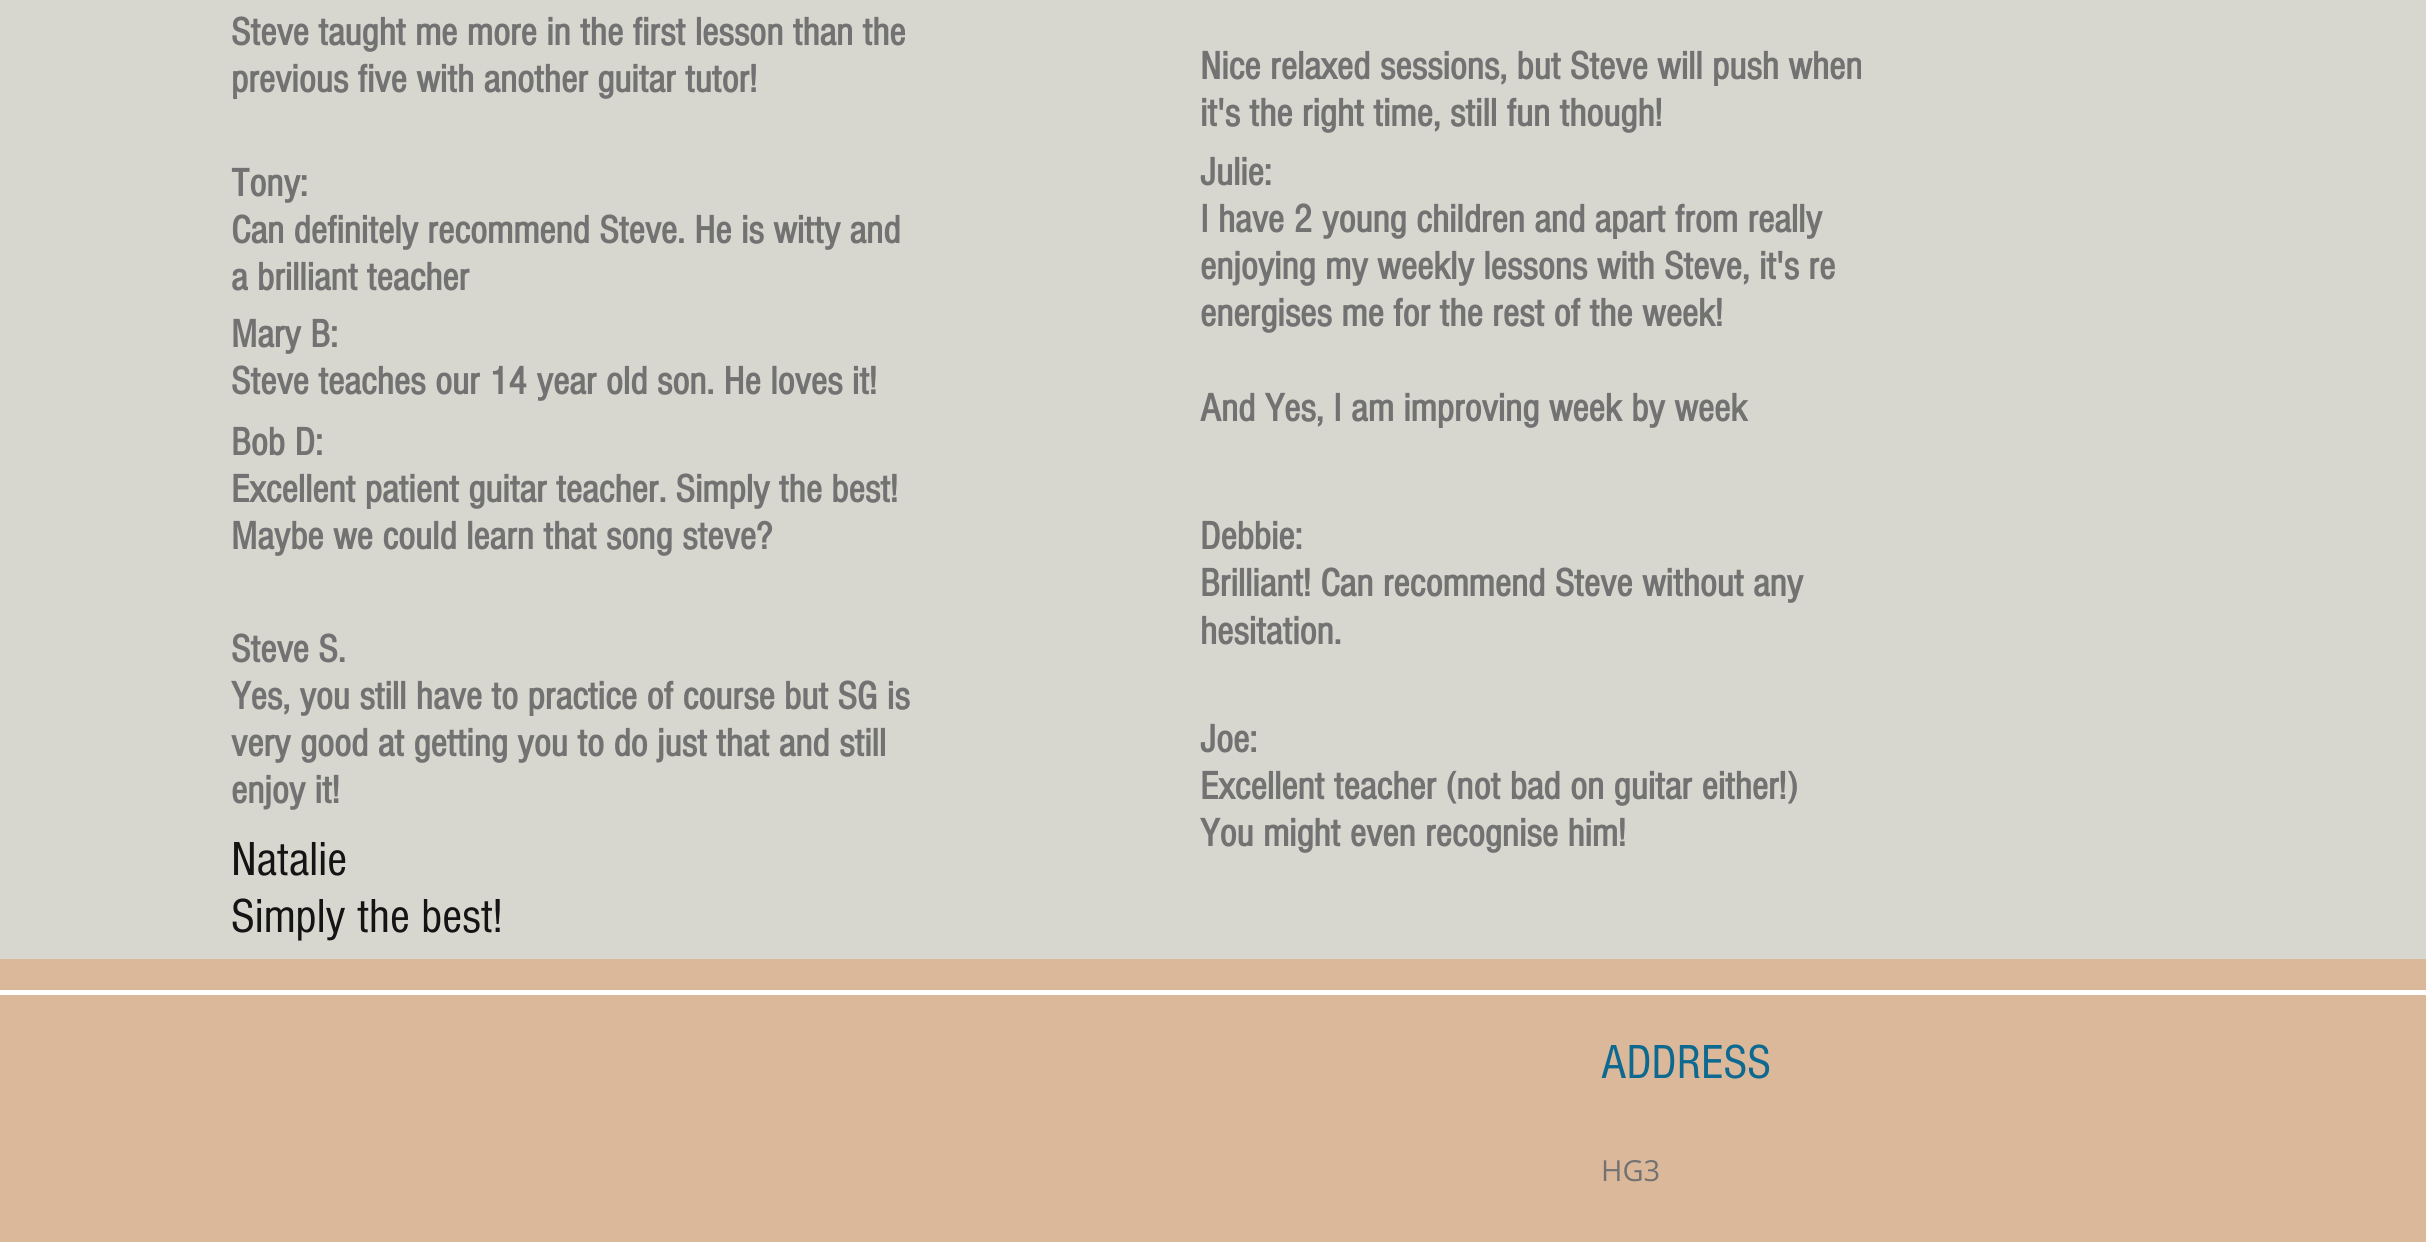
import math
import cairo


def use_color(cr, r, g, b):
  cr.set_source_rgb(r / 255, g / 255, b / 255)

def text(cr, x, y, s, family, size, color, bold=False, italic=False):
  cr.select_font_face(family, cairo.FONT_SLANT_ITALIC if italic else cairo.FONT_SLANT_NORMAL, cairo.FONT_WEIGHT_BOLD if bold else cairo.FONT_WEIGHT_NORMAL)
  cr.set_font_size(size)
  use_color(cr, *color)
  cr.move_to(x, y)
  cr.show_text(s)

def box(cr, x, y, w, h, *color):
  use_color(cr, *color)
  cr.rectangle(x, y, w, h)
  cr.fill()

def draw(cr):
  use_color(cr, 215, 214, 207)
  cr.paint()
  box(cr, 0, 959, 2426, 283, 219, 184, 154)
  box(cr, 0, 990, 2426, 5, 255, 255, 255)
  text(cr, 231, 45, "Steve taught me more in the first lesson than the", "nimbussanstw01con", 40.5, (114, 114, 114), bold=True)
  text(cr, 231, 92, "previous five with another guitar tutor!", "nimbussanstw01con", 40.5, (114, 114, 114), bold=True)
  text(cr, 1200, 79, "Nice relaxed sessions, but Steve will push when", "nimbussanstw01con", 40.5, (114, 114, 114), bold=True)
  text(cr, 1200, 126, "it's the right time, still fun though!", "nimbussanstw01con", 40.5, (114, 114, 114), bold=True)
  text(cr, 231, 196, "Tony:", "nimbussanstw01con", 40.5, (114, 114, 114), bold=True)
  text(cr, 231, 243, "Can definitely recommend Steve. He is witty and", "nimbussanstw01con", 40.5, (114, 114, 114), bold=True)
  text(cr, 231, 290, "a brilliant teacher", "nimbussanstw01con", 40.5, (114, 114, 114), bold=True)
  text(cr, 1200, 185, "Julie:", "nimbussanstw01con", 40.5, (114, 114, 114), bold=True)
  text(cr, 1200, 232, "I have 2 young children and apart from really", "nimbussanstw01con", 40.5, (114, 114, 114), bold=True)
  text(cr, 1200, 279, "enjoying my weekly lessons with Steve, it's re", "nimbussanstw01con", 40.5, (114, 114, 114), bold=True)
  text(cr, 1200, 326, "energises me for the rest of the week!", "nimbussanstw01con", 40.5, (114, 114, 114), bold=True)
  text(cr, 1200, 421, "And Yes, I am improving week by week", "nimbussanstw01con", 40.5, (114, 114, 114), bold=True)
  text(cr, 231, 347, "Mary B:", "nimbussanstw01con", 40.5, (114, 114, 114), bold=True)
  text(cr, 231, 394, "Steve teaches our 14 year old son. He loves it!", "nimbussanstw01con", 40.5, (114, 114, 114), bold=True)
  text(cr, 231, 455, "Bob D:", "nimbussanstw01con", 40.5, (114, 114, 114), bold=True)
  text(cr, 231, 502, "Excellent patient guitar teacher. Simply the best!", "nimbussanstw01con", 40.5, (114, 114, 114), bold=True)
  text(cr, 231, 549, "Maybe we could learn that song steve?", "nimbussanstw01con", 40.5, (114, 114, 114), bold=True)
  text(cr, 1200, 549, "Debbie:", "nimbussanstw01con", 40.5, (114, 114, 114), bold=True)
  text(cr, 1200, 596, "Brilliant! Can recommend Steve without any", "nimbussanstw01con", 40.5, (114, 114, 114), bold=True)
  text(cr, 1200, 644, "hesitation.", "nimbussanstw01con", 40.5, (114, 114, 114), bold=True)
  text(cr, 231, 662, "Steve S.", "nimbussanstw01con", 40.5, (114, 114, 114), bold=True)
  text(cr, 231, 709, "Yes, you still have to practice of course but SG is", "nimbussanstw01con", 40.5, (114, 114, 114), bold=True)
  text(cr, 231, 756, "very good at getting you to do just that and still", "nimbussanstw01con", 40.5, (114, 114, 114), bold=True)
  text(cr, 231, 803, "enjoy it!", "nimbussanstw01con", 40.5, (114, 114, 114), bold=True)
  text(cr, 1200, 752, "Joe:", "nimbussanstw01con", 40.5, (114, 114, 114), bold=True)
  text(cr, 1200, 799, "Excellent teacher (not bad on guitar either!)", "nimbussanstw01con", 40.5, (114, 114, 114), bold=True)
  text(cr, 1200, 846, "You might even recognise him!", "nimbussanstw01con", 40.5, (114, 114, 114), bold=True)
  text(cr, 231, 875, "Natalie", "nimbussanstw01con", 49.5, (20, 20, 20))
  text(cr, 231, 932, "Simply the best!", "nimbussanstw01con", 49.5, (20, 20, 20))
  text(cr, 1601, 1078, "ADDRESS", "nimbussanstw01con", 49.5, (14, 105, 144))
  text(cr, 1601, 1181, "HG3", "Open Sans", 29, (114, 114, 114))


surface = cairo.ImageSurface(cairo.FORMAT_RGB24, 2426, 1242)
cr = cairo.Context(surface)
options = cairo.FontOptions()
options.set_hint_metrics(cairo.HINT_METRICS_OFF)
options.set_hint_style(cairo.HINT_STYLE_NONE)
cr.set_font_options(options)
cr.set_miter_limit(4)
draw(cr)
surface.write_to_png("out.png")
